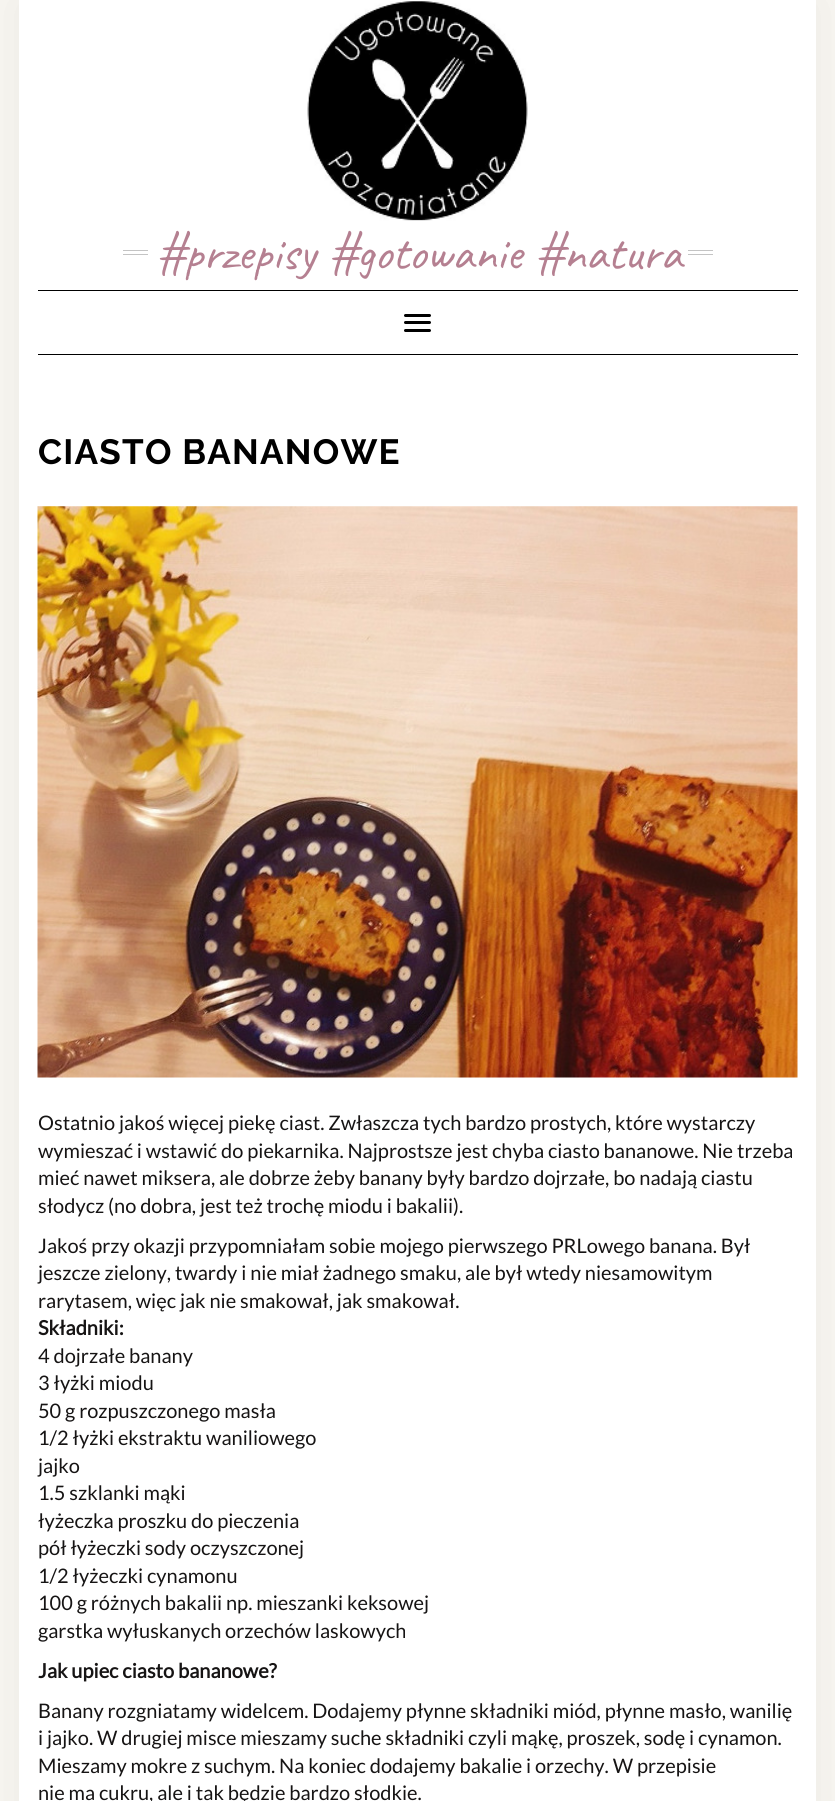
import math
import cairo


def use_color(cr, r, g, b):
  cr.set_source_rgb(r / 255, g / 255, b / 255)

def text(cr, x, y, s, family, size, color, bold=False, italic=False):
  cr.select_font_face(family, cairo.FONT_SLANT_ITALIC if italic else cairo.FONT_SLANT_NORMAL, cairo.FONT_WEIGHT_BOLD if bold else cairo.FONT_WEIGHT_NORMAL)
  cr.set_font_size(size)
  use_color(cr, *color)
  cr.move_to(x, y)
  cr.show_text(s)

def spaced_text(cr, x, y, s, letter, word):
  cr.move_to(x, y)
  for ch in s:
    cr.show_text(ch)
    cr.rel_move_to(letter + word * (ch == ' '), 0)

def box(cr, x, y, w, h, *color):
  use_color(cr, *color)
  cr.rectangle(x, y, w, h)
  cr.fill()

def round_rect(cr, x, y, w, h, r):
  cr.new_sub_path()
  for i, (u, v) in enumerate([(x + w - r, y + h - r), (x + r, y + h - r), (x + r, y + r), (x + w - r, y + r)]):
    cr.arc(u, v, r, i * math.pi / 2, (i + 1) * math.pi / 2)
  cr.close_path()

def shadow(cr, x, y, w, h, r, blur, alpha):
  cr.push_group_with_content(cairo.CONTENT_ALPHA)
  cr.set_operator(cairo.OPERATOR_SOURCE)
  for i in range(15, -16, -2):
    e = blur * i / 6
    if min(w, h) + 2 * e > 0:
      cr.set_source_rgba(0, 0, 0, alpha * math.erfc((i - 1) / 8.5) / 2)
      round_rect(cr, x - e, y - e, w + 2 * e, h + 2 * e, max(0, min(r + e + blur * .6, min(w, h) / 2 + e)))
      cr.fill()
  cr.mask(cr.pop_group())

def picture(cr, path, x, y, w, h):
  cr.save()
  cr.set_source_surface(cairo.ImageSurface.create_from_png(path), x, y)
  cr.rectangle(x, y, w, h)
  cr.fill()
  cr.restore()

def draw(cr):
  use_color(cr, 249, 247, 242)
  cr.paint()
  use_color(cr, 0, 0, 0)
  shadow(cr, 19, 0, 797, 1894, 0, 31, 0.06)
  box(cr, 19, 0, 797, 1801, 255, 255, 255)
  picture(cr, "img_01.png", 307, 1, 221, 220)
  box(cr, 123, 250, 25, 1, 196, 196, 196)
  box(cr, 123, 254, 25, 1, 196, 196, 196)
  box(cr, 688, 250, 25, 1, 196, 196, 196)
  box(cr, 688, 254, 25, 1, 196, 196, 196)
  box(cr, 38, 290, 760, 1, 0, 0, 0)
  box(cr, 38, 354, 760, 1, 0, 0, 0)
  round_rect(cr, 404, 314, 27, 3, 1.5)
  cr.fill()
  round_rect(cr, 404, 321, 27, 3, 1.5)
  cr.fill()
  round_rect(cr, 404, 329, 27, 3, 1.5)
  cr.fill()
  picture(cr, "img_02.png", 37, 506, 761, 572)
  cr.select_font_face("Caveat")
  cr.set_font_size(50)
  use_color(cr, 181, 128, 145)
  spaced_text(cr, 156, 269, "#przepisy #gotowanie #natura", 0, 1)
  cr.select_font_face("Raleway", cairo.FONT_SLANT_NORMAL, cairo.FONT_WEIGHT_BOLD)
  cr.set_font_size(35)
  use_color(cr, 0, 0, 0)
  spaced_text(cr, 38, 464, "CIASTO BANANOWE", 1.25, 0)
  text(cr, 38, 1130, "Ostatnio jakoś więcej piekę ciast. Zwłaszcza tych bardzo prostych, które wystarczy", "Lato", 20, (22, 20, 20))
  text(cr, 38, 1158, "wymieszać i wstawić do piekarnika. Najprostsze jest chyba ciasto bananowe. Nie trzeba", "Lato", 20, (22, 20, 20))
  text(cr, 38, 1185, "mieć nawet miksera, ale dobrze żeby banany były bardzo dojrzałe, bo nadają ciastu", "Lato", 20, (22, 20, 20))
  text(cr, 38, 1213, "słodycz (no dobra, jest też trochę miodu i bakalii).", "Lato", 20, (22, 20, 20))
  text(cr, 38, 1253, "Jakoś przy okazji przypomniałam sobie mojego pierwszego PRLowego banana. Był", "Lato", 20, (22, 20, 20))
  text(cr, 38, 1280, "jeszcze zielony, twardy i nie miał żadnego smaku, ale był wtedy niesamowitym", "Lato", 20, (22, 20, 20))
  text(cr, 38, 1308, "rarytasem, więc jak nie smakował, jak smakował.", "Lato", 20, (22, 20, 20))
  text(cr, 38, 1335, "Składniki:", "Lato", 20, (22, 20, 20), bold=True)
  text(cr, 38, 1363, "4 dojrzałe banany", "Lato", 20, (22, 20, 20))
  text(cr, 38, 1390, "3 łyżki miodu", "Lato", 20, (22, 20, 20))
  text(cr, 38, 1418, "50 g rozpuszczonego masła", "Lato", 20, (22, 20, 20))
  text(cr, 38, 1445, "1/2 łyżki ekstraktu waniliowego", "Lato", 20, (22, 20, 20))
  text(cr, 38, 1473, "jajko", "Lato", 20, (22, 20, 20))
  text(cr, 38, 1500, "1.5 szklanki mąki", "Lato", 20, (22, 20, 20))
  text(cr, 38, 1528, "łyżeczka proszku do pieczenia", "Lato", 20, (22, 20, 20))
  text(cr, 38, 1555, "pół łyżeczki sody oczyszczonej", "Lato", 20, (22, 20, 20))
  text(cr, 38, 1583, "1/2 łyżeczki cynamonu", "Lato", 20, (22, 20, 20))
  text(cr, 38, 1610, "100 g różnych bakalii np. mieszanki keksowej", "Lato", 20, (22, 20, 20))
  text(cr, 38, 1638, "garstka wyłuskanych orzechów laskowych", "Lato", 20, (22, 20, 20))
  text(cr, 38, 1678, "Jak upiec ciasto bananowe?", "Lato", 20, (22, 20, 20), bold=True)
  text(cr, 38, 1718, "Banany rozgniatamy widelcem. Dodajemy płynne składniki miód, płynne masło, wanilię", "Lato", 20, (22, 20, 20))
  text(cr, 38, 1745, "i jajko. W drugiej misce mieszamy suche składniki czyli mąkę, proszek, sodę i cynamon.", "Lato", 20, (22, 20, 20))
  text(cr, 38, 1773, "Mieszamy mokre z suchym. Na koniec dodajemy bakalie i orzechy. W przepisie", "Lato", 20, (22, 20, 20))
  text(cr, 38, 1800, "nie ma cukru, ale i tak będzie bardzo słodkie.", "Lato", 20, (22, 20, 20))


surface = cairo.ImageSurface(cairo.FORMAT_RGB24, 835, 1801)
cr = cairo.Context(surface)
options = cairo.FontOptions()
options.set_hint_metrics(cairo.HINT_METRICS_OFF)
options.set_hint_style(cairo.HINT_STYLE_NONE)
cr.set_font_options(options)
cr.set_miter_limit(4)
draw(cr)
surface.write_to_png("out.png")
